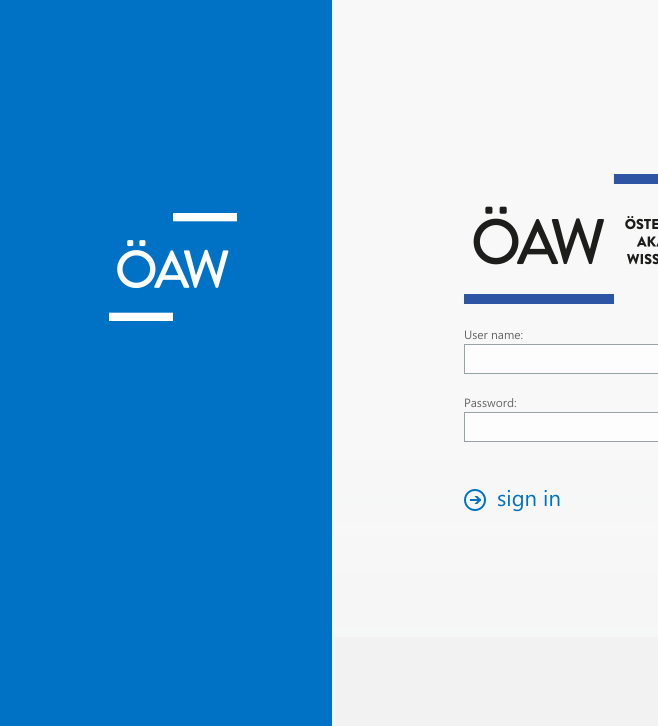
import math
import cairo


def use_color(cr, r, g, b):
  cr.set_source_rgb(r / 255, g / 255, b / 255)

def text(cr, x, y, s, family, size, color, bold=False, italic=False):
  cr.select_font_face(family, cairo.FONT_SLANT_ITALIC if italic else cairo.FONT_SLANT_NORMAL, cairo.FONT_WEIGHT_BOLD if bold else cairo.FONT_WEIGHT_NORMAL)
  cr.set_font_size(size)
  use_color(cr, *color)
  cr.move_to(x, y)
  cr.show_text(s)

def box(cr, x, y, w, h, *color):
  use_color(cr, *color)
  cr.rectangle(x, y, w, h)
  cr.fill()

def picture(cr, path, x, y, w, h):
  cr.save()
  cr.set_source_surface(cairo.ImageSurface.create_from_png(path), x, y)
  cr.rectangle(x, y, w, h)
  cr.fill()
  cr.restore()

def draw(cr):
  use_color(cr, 242, 242, 242)
  cr.paint()
  picture(cr, "img_01.png", 332, 0, 326, 637)
  box(cr, 0, 0, 332, 726, 0, 114, 198)
  picture(cr, "img_02.png", 109, 213, 128, 108)
  picture(cr, "img_03.png", 464, 174, 194, 130)
  use_color(cr, 253, 253, 253)
  cr.rectangle(464.5, 344.5, 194, 29)
  cr.fill_preserve()
  use_color(cr, 152, 163, 166)
  cr.set_line_width(1)
  cr.stroke()
  use_color(cr, 253, 253, 253)
  cr.rectangle(464.5, 412.5, 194, 29)
  cr.fill_preserve()
  use_color(cr, 152, 163, 166)
  cr.stroke()
  picture(cr, "img_04.png", 464, 489, 22, 22)
  text(cr, 464, 339, "User name:", "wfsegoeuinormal", 12, (102, 102, 102))
  text(cr, 464, 407, "Password:", "wfsegoeuinormal", 12, (102, 102, 102))
  text(cr, 497, 506, "sign in", "wfsegoeuinormal", 22, (0, 114, 198))


surface = cairo.ImageSurface(cairo.FORMAT_RGB24, 658, 726)
cr = cairo.Context(surface)
options = cairo.FontOptions()
options.set_hint_metrics(cairo.HINT_METRICS_OFF)
options.set_hint_style(cairo.HINT_STYLE_NONE)
cr.set_font_options(options)
cr.set_miter_limit(4)
draw(cr)
surface.write_to_png("out.png")
